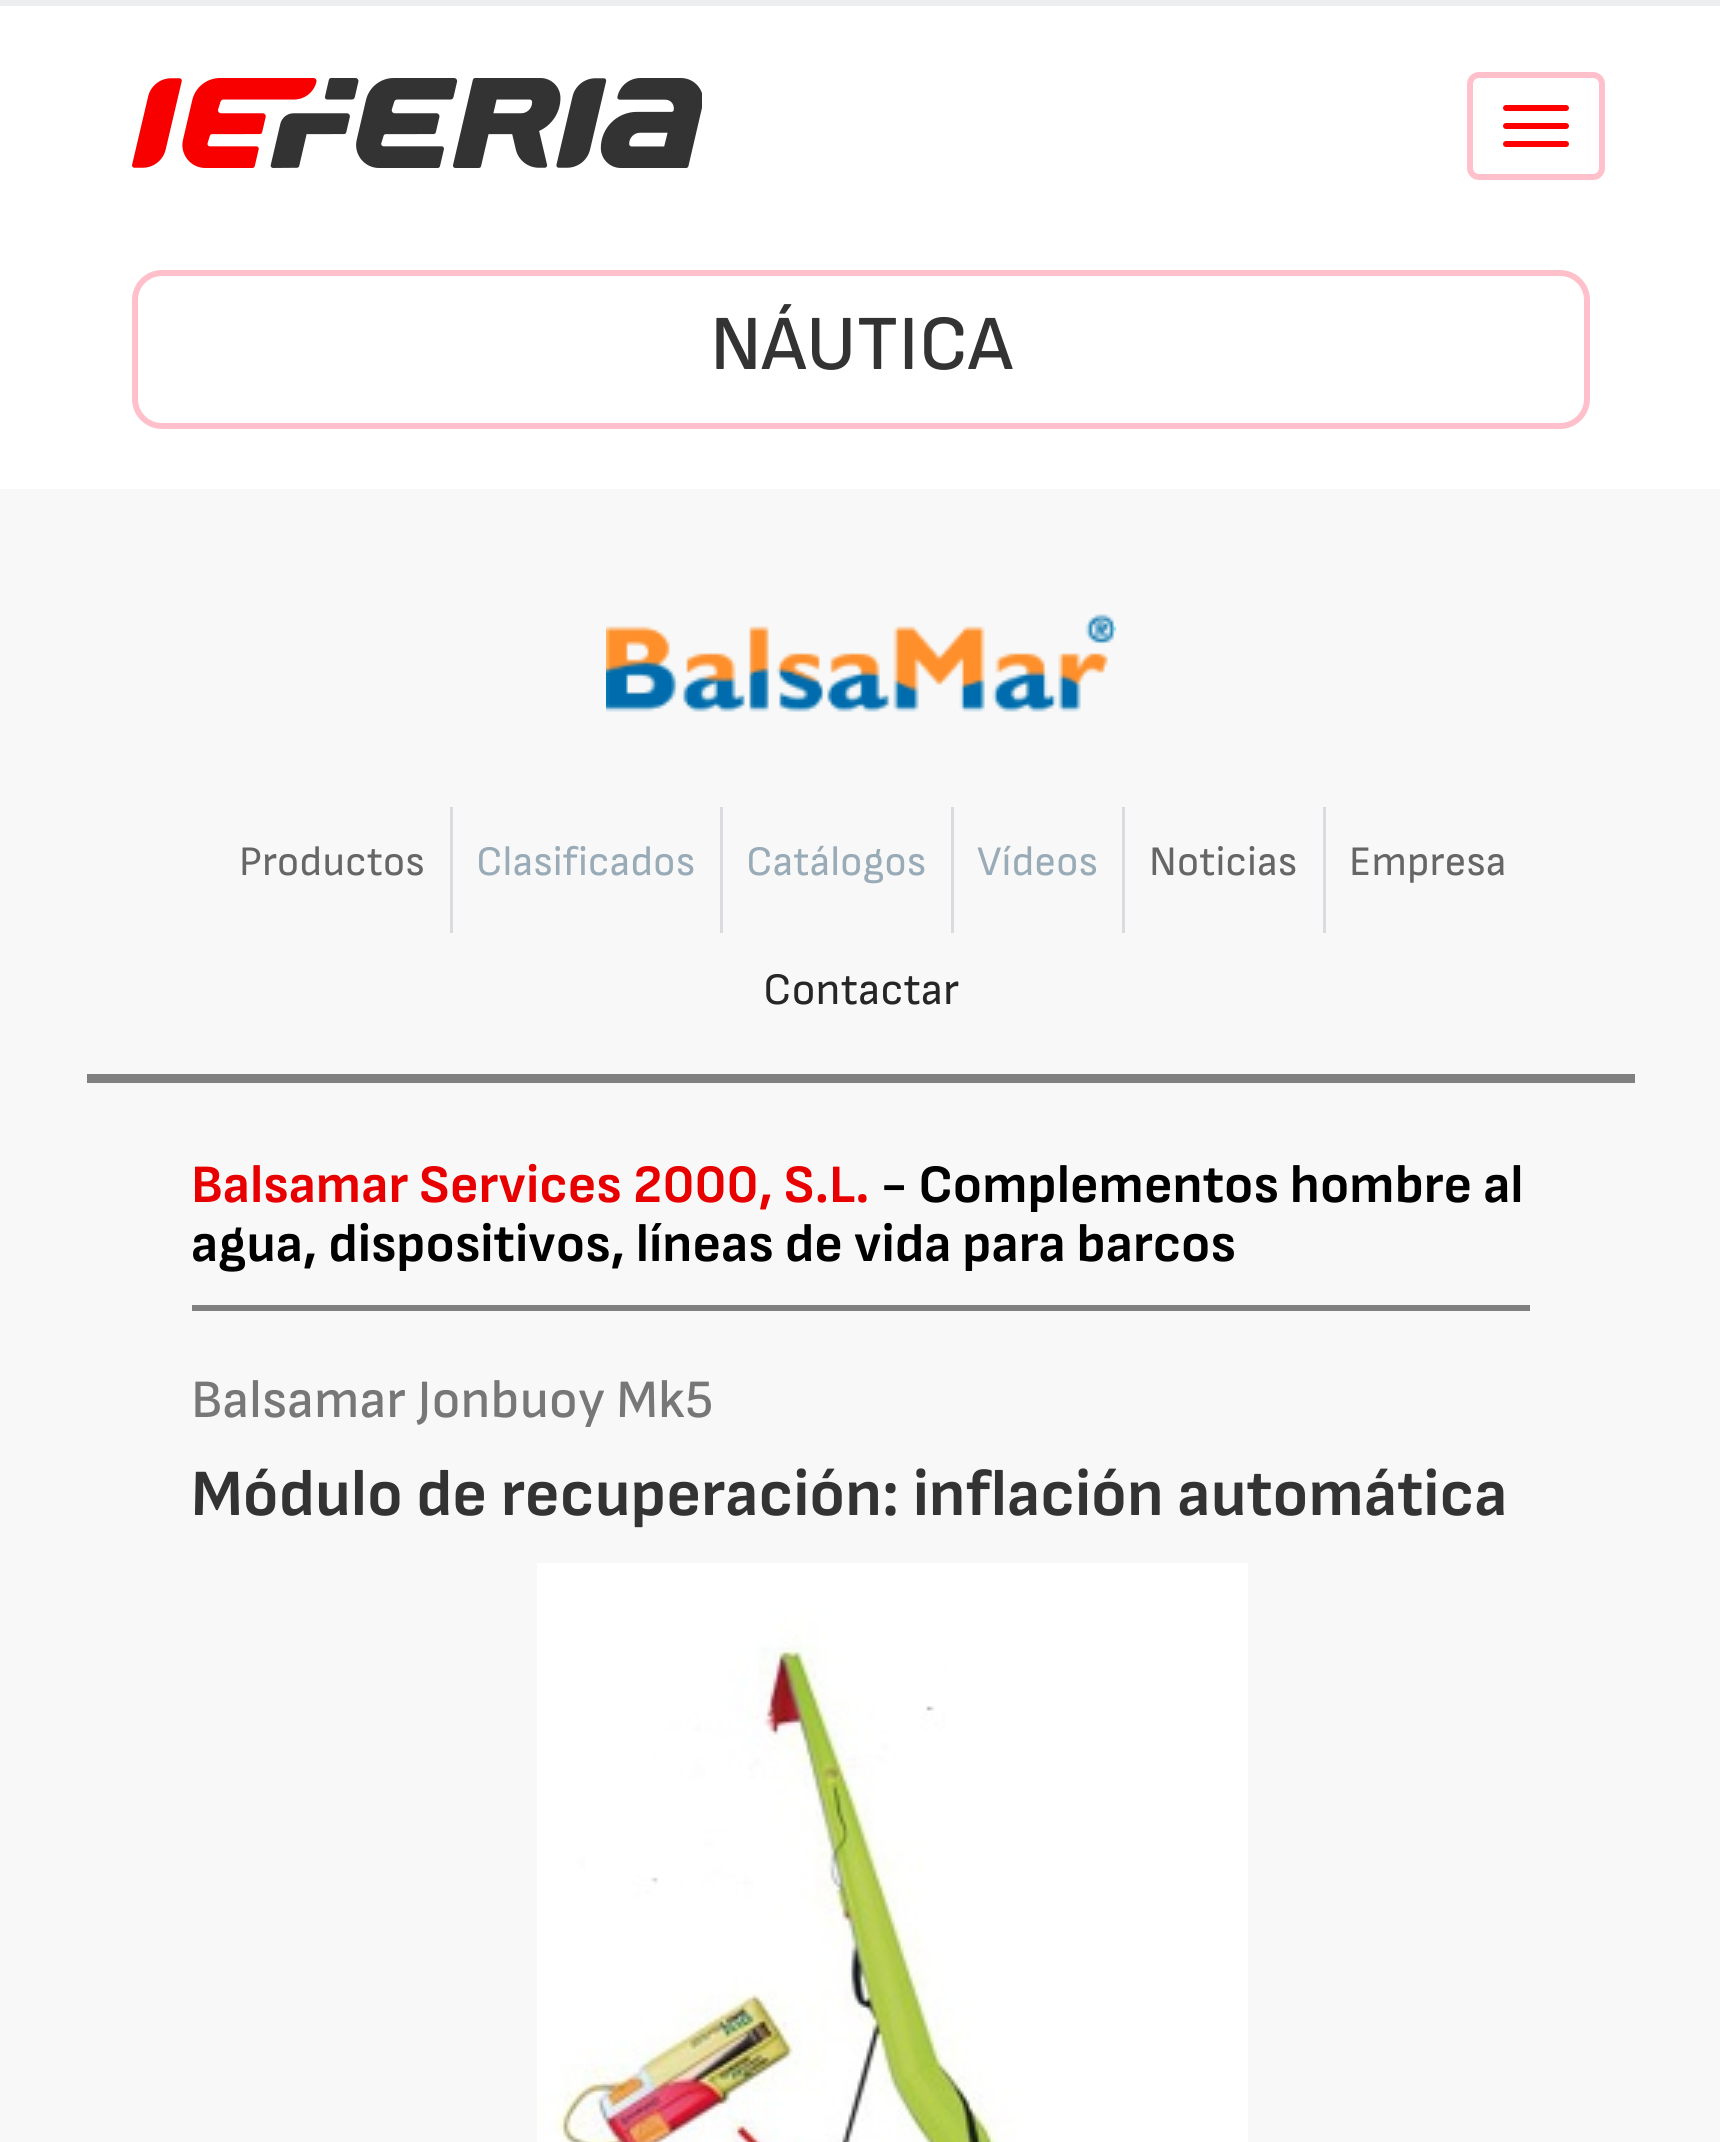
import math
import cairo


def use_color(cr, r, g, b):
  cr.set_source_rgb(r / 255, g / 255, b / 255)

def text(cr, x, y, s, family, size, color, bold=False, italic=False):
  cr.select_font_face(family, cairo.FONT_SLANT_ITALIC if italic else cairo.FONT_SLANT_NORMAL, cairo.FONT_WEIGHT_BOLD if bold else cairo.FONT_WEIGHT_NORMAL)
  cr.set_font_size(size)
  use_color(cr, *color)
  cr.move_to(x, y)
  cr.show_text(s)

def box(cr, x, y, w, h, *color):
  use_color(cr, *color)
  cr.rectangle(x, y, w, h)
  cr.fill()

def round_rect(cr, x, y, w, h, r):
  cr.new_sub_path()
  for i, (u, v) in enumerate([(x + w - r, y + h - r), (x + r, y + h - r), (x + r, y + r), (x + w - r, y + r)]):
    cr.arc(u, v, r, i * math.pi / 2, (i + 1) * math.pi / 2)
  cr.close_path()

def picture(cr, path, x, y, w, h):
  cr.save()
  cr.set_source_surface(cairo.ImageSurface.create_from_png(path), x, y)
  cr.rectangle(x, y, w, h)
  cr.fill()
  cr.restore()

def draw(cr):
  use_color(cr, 255, 255, 255)
  cr.paint()
  box(cr, 0, 0, 1720, 6, 236, 238, 240)
  picture(cr, "img_01.png", 132, 78, 570, 90)
  round_rect(cr, 1470, 75, 132, 102, 9)
  use_color(cr, 255, 192, 203)
  cr.set_line_width(6)
  cr.stroke()
  use_color(cr, 255, 0, 0)
  round_rect(cr, 1503, 105, 66, 6, 3)
  cr.fill()
  round_rect(cr, 1503, 123, 66, 6, 3)
  cr.fill()
  round_rect(cr, 1503, 141, 66, 6, 3)
  cr.fill()
  round_rect(cr, 135, 273, 1452, 153, 27)
  use_color(cr, 255, 192, 203)
  cr.stroke()
  box(cr, 0, 489, 1720, 1653, 248, 248, 248)
  box(cr, 87, 1074, 1548, 9, 128, 128, 128)
  picture(cr, "img_02.png", 606, 614, 510, 98)
  box(cr, 450, 807, 3, 126, 218, 219, 223)
  box(cr, 720, 807, 3, 126, 218, 219, 223)
  box(cr, 951, 807, 3, 126, 218, 219, 223)
  box(cr, 1122, 807, 3, 126, 218, 219, 223)
  box(cr, 1323, 807, 3, 126, 218, 219, 223)
  box(cr, 192, 1305, 1338, 6, 128, 128, 128)
  picture(cr, "img_03.png", 537, 1563, 711, 579)
  text(cr, 710, 369, "NÁUTICA", "Sofia Sans Medium", 78, (51, 51, 51))
  text(cr, 239, 875, "Productos", "Sofia Sans", 42, (102, 102, 102))
  text(cr, 476, 875, "Clasificados", "Sofia Sans", 42, (152, 171, 182))
  text(cr, 746, 875, "Catálogos", "Sofia Sans", 42, (152, 171, 182))
  text(cr, 977, 875, "Vídeos", "Sofia Sans", 42, (152, 171, 182))
  text(cr, 1149, 875, "Noticias", "Sofia Sans", 42, (102, 102, 102))
  text(cr, 1349, 875, "Empresa", "Sofia Sans", 42, (102, 102, 102))
  text(cr, 763, 1004, "Contactar", "Sofia Sans", 45, (38, 38, 38))
  text(cr, 191, 1202, "Balsamar Services 2000, S.L.", "Sofia Sans", 54, (232, 0, 0), bold=True)
  text(cr, 881, 1202, "- Complementos hombre al", "Sofia Sans", 54, (0, 0, 0), bold=True)
  text(cr, 191, 1261, "agua, dispositivos, líneas de vida para barcos", "Sofia Sans", 54, (0, 0, 0), bold=True)
  text(cr, 191, 1417, "Balsamar Jonbuoy Mk5", "Sofia Sans Medium", 54, (119, 119, 119))
  text(cr, 191, 1515, "Módulo de recuperación: inflación automática", "Sofia Sans", 66, (51, 51, 51), bold=True)


surface = cairo.ImageSurface(cairo.FORMAT_RGB24, 1720, 2142)
cr = cairo.Context(surface)
options = cairo.FontOptions()
options.set_hint_metrics(cairo.HINT_METRICS_OFF)
options.set_hint_style(cairo.HINT_STYLE_NONE)
cr.set_font_options(options)
cr.set_miter_limit(4)
draw(cr)
surface.write_to_png("out.png")
